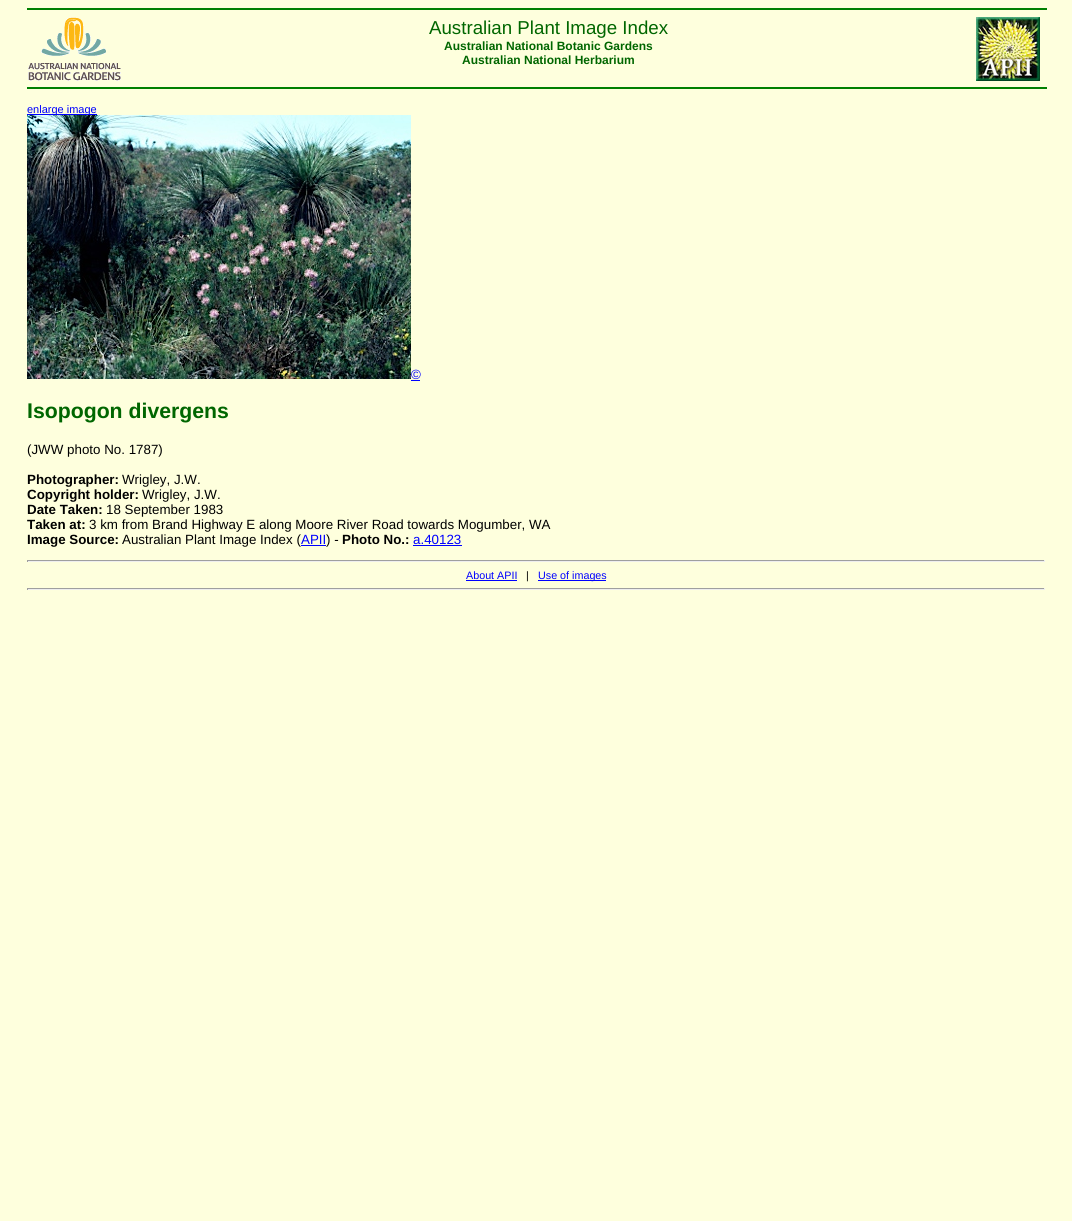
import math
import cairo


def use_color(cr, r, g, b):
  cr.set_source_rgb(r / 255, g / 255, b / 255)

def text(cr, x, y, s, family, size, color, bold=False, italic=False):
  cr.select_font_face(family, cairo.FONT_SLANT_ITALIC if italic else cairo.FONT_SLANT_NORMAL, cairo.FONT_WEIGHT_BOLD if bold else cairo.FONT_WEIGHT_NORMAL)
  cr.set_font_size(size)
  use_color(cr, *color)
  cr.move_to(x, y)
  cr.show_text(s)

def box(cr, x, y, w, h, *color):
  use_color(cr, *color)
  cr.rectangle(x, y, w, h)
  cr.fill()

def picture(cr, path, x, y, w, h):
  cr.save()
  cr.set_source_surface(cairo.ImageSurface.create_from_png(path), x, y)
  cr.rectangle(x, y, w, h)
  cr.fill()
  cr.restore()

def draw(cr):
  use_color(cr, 254, 255, 221)
  cr.paint()
  box(cr, 27, 8, 1020, 2, 0, 128, 0)
  picture(cr, "img_01.png", 28, 17, 93, 64)
  picture(cr, "img_02.png", 976, 17, 64, 64)
  box(cr, 27, 87, 1020, 2, 0, 128, 0)
  box(cr, 27, 114, 70, 1, 0, 0, 255)
  box(cr, 411, 380, 9, 1, 0, 0, 255)
  box(cr, 301, 545, 25, 1, 0, 0, 255)
  box(cr, 413, 545, 49, 1, 0, 0, 255)
  box(cr, 27, 560, 1018, 1, 159, 159, 159)
  box(cr, 1044, 560, 1, 2, 238, 238, 238)
  box(cr, 27, 561, 1018, 1, 238, 238, 238)
  box(cr, 27, 560, 1, 2, 159, 159, 159)
  box(cr, 466, 580, 51, 1, 0, 0, 255)
  box(cr, 538, 580, 68, 1, 0, 0, 255)
  box(cr, 27, 588, 1018, 1, 159, 159, 159)
  box(cr, 1044, 588, 1, 2, 238, 238, 238)
  box(cr, 27, 589, 1018, 1, 238, 238, 238)
  box(cr, 27, 588, 1, 2, 159, 159, 159)
  text(cr, 429, 34, "Australian Plant Image Index", "Liberation Sans", 18.7, (0, 102, 0))
  text(cr, 444, 50, "Australian National Botanic Gardens", "Liberation Sans", 12, (0, 102, 0), bold=True)
  text(cr, 462, 64, "Australian National Herbarium", "Liberation Sans", 12, (0, 102, 0), bold=True)
  text(cr, 27, 113, "enlarge image", "Liberation Sans", 11, (0, 0, 255))
  picture(cr, "img_03.png", 27, 115, 384, 264)
  text(cr, 411, 379, "©", "Liberation Sans", 13.35, (0, 0, 255))
  text(cr, 27, 418, "Isopogon divergens", "Liberation Sans", 21.25, (0, 102, 0), bold=True)
  text(cr, 27, 454, "(JWW photo No. 1787)", "Liberation Sans", 13.35, (0, 0, 0))
  text(cr, 27, 484, "Photographer:", "Liberation Sans", 13.35, (0, 0, 0), bold=True)
  text(cr, 122, 484, "Wrigley, J.W.", "Liberation Sans", 13.35, (0, 0, 0))
  text(cr, 27, 499, "Copyright holder:", "Liberation Sans", 13.35, (0, 0, 0), bold=True)
  text(cr, 142, 499, "Wrigley, J.W.", "Liberation Sans", 13.35, (0, 0, 0))
  text(cr, 27, 514, "Date Taken:", "Liberation Sans", 13.35, (0, 0, 0), bold=True)
  text(cr, 106, 514, "18 September 1983", "Liberation Sans", 13.35, (0, 0, 0))
  text(cr, 27, 529, "Taken at:", "Liberation Sans", 13.35, (0, 0, 0), bold=True)
  text(cr, 89, 529, "3 km from Brand Highway E along Moore River Road towards Mogumber, WA", "Liberation Sans", 13.35, (0, 0, 0))
  text(cr, 27, 544, "Image Source:", "Liberation Sans", 13.35, (0, 0, 0), bold=True)
  text(cr, 122, 544, "Australian Plant Image Index (", "Liberation Sans", 13.35, (0, 0, 0))
  text(cr, 301, 544, "APII", "Liberation Sans", 13.35, (0, 0, 255))
  text(cr, 326, 544, ") -", "Liberation Sans", 13.35, (0, 0, 0))
  text(cr, 342, 544, "Photo No.:", "Liberation Sans", 13.35, (0, 0, 0), bold=True)
  text(cr, 413, 544, "a.40123", "Liberation Sans", 13.35, (0, 0, 255))
  text(cr, 466, 579, "About APII", "Liberation Sans", 10.75, (0, 0, 255))
  text(cr, 526, 579, "|", "Liberation Sans", 10.75, (0, 0, 0))
  text(cr, 538, 579, "Use of images", "Liberation Sans", 10.75, (0, 0, 255))


surface = cairo.ImageSurface(cairo.FORMAT_RGB24, 1072, 1221)
cr = cairo.Context(surface)
options = cairo.FontOptions()
options.set_hint_metrics(cairo.HINT_METRICS_OFF)
options.set_hint_style(cairo.HINT_STYLE_NONE)
cr.set_font_options(options)
cr.set_miter_limit(4)
draw(cr)
surface.write_to_png("out.png")
